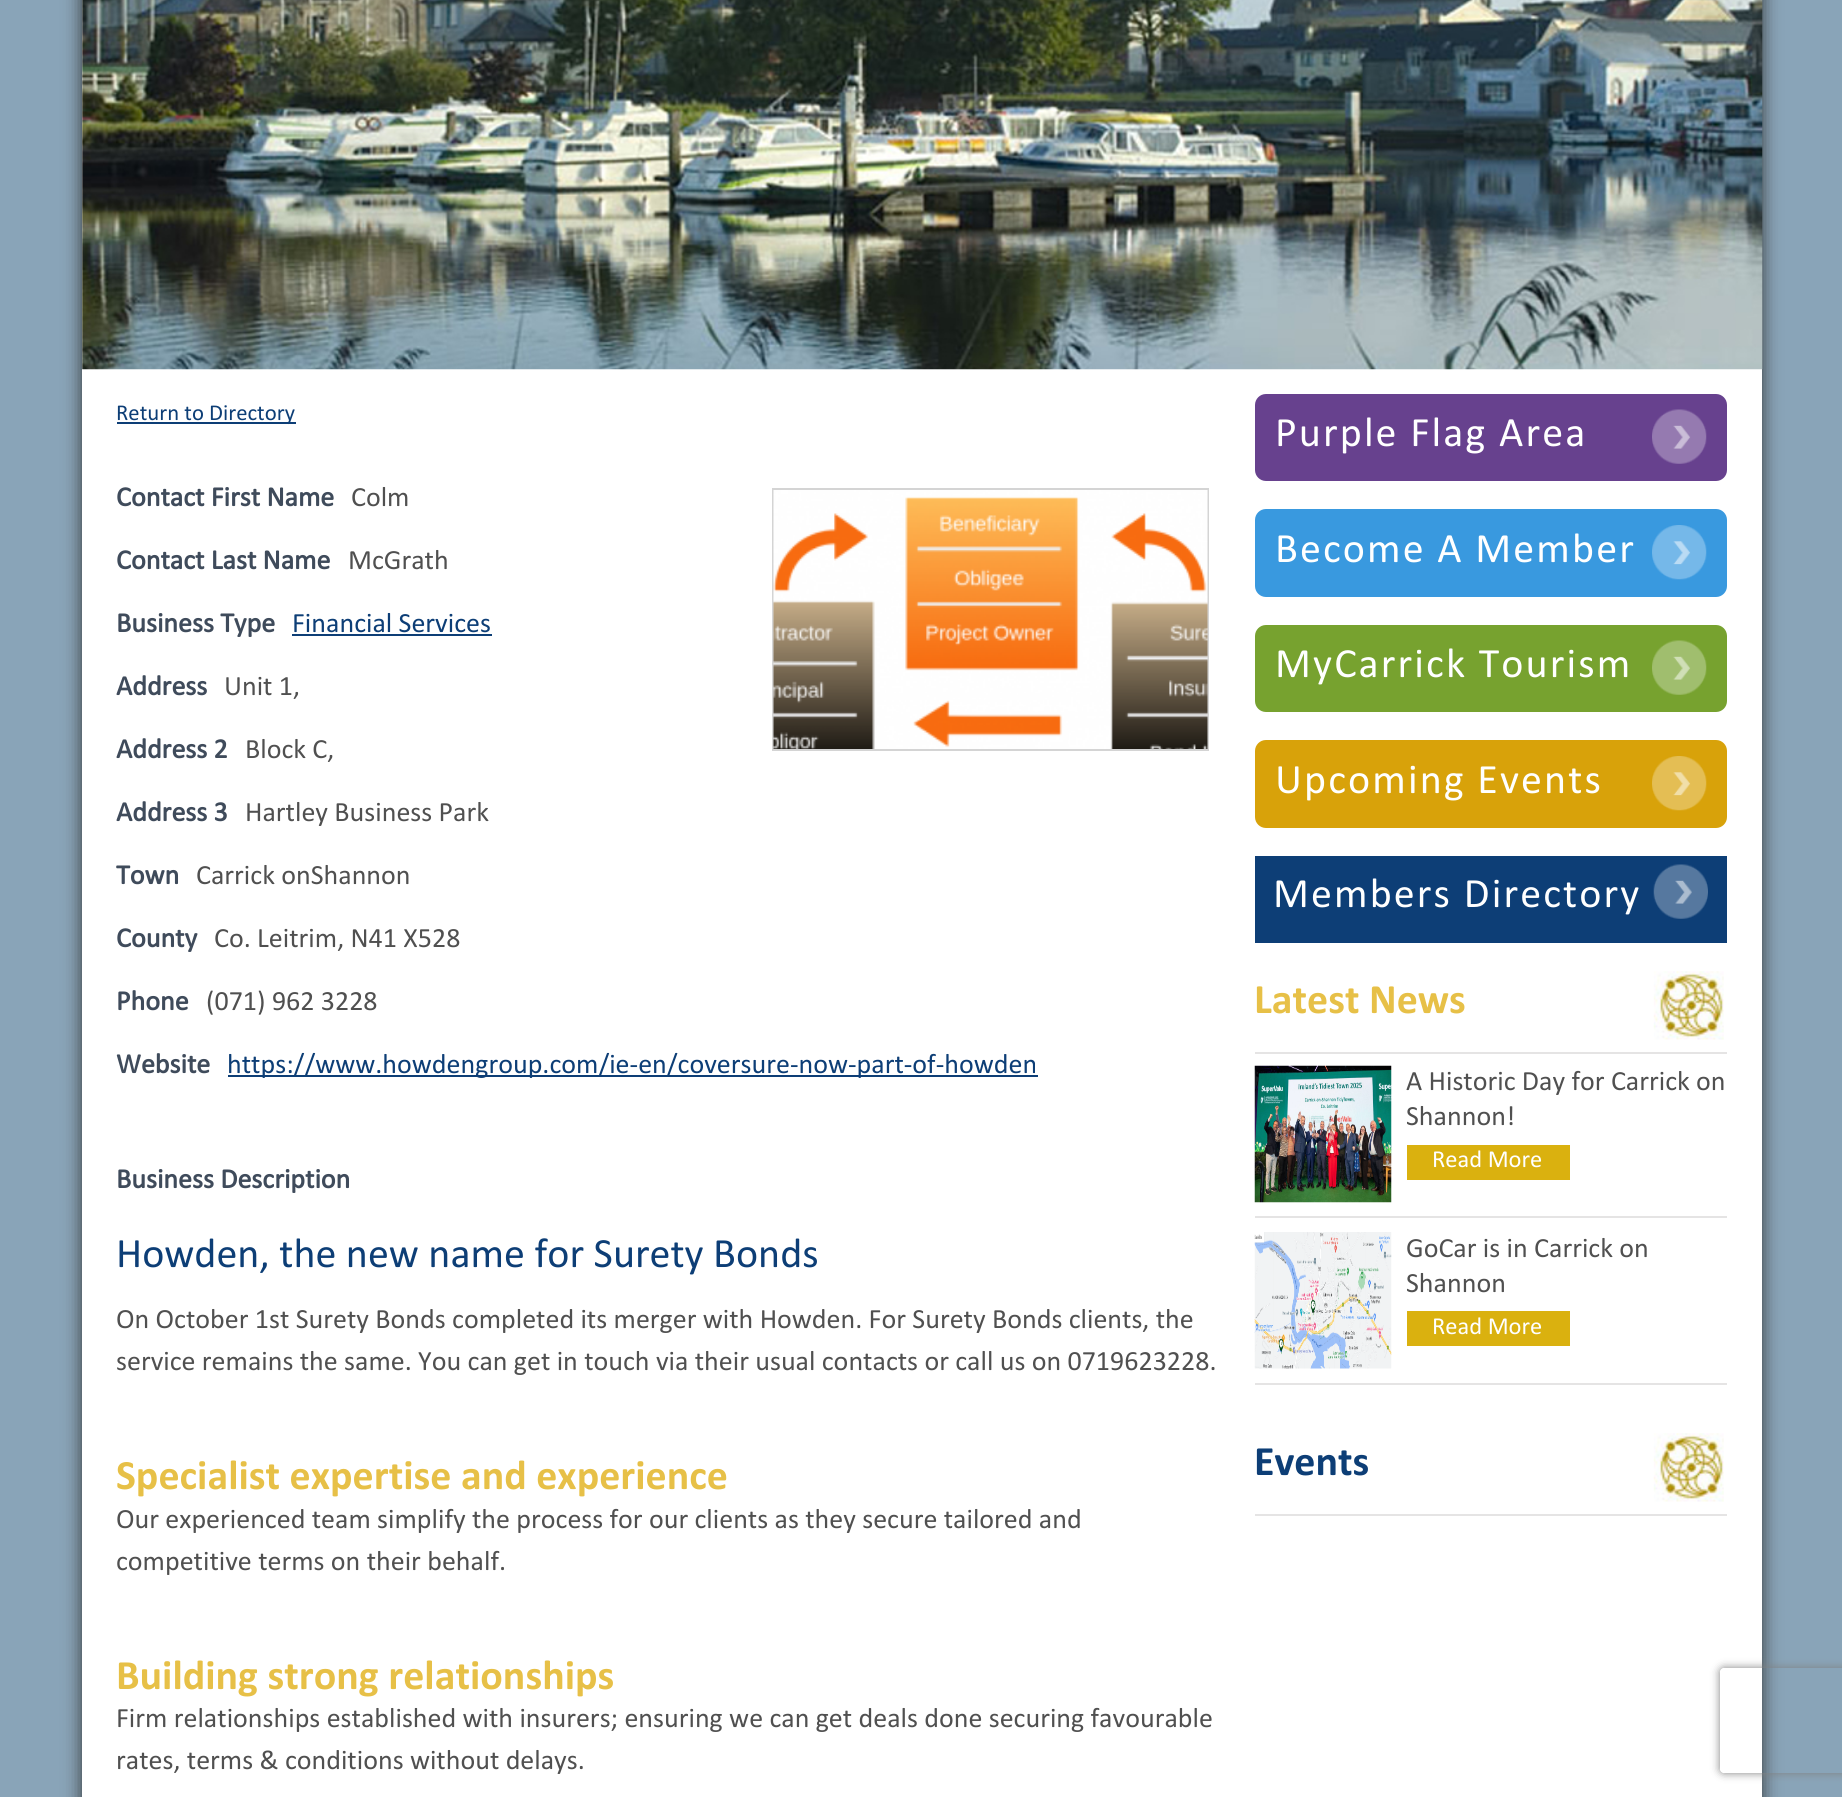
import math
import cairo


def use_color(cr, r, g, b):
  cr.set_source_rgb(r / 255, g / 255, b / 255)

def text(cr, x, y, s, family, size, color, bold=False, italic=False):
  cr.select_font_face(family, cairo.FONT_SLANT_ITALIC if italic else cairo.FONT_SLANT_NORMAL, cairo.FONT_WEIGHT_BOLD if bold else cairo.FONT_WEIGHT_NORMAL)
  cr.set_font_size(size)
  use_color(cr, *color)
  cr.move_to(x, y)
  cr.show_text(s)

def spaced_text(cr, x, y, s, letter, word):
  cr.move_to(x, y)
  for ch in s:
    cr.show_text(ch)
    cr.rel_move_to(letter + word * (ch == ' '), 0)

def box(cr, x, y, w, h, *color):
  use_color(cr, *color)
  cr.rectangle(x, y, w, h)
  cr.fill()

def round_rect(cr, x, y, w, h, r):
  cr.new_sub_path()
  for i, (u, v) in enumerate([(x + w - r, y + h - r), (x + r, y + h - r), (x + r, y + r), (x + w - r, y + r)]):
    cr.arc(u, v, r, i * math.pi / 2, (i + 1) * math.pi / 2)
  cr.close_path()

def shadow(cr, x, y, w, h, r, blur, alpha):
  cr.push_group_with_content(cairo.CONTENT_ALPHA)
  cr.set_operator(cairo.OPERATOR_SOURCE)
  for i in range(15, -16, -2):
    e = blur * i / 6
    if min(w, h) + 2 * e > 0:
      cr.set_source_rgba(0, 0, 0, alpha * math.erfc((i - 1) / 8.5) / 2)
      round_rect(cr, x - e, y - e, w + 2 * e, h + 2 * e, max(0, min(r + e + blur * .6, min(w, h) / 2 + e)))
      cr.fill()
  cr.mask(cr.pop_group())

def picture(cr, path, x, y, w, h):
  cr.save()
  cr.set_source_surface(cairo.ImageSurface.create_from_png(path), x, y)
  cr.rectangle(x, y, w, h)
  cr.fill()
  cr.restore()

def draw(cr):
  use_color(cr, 137, 164, 184)
  cr.paint()
  use_color(cr, 51, 51, 51)
  shadow(cr, 82, -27, 1680, 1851, 0, 9, 1)
  box(cr, 82, 0, 1680, 1797, 255, 255, 255)
  picture(cr, "img_01.png", 82, 0, 1681, 370)
  box(cr, 117, 422, 179, 2, 13, 62, 118)
  box(cr, 292, 634, 200, 2, 13, 62, 118)
  box(cr, 228, 1075, 810, 2, 13, 62, 118)
  cr.rectangle(773, 489, 435, 261)
  use_color(cr, 212, 212, 212)
  cr.stroke()
  picture(cr, "img_02.png", 773, 490, 435, 259)
  use_color(cr, 103, 65, 142)
  round_rect(cr, 1256, 395, 470, 85, 10)
  cr.fill_preserve()
  cr.stroke()
  picture(cr, "img_03.png", 1652, 409, 55, 55)
  use_color(cr, 57, 153, 223)
  round_rect(cr, 1256, 510, 470, 86, 10)
  cr.fill_preserve()
  cr.stroke()
  picture(cr, "img_04.png", 1652, 525, 55, 55)
  use_color(cr, 119, 162, 47)
  round_rect(cr, 1256, 626, 470, 85, 10)
  cr.fill_preserve()
  cr.stroke()
  picture(cr, "img_05.png", 1652, 640, 55, 55)
  use_color(cr, 216, 162, 10)
  round_rect(cr, 1256, 741, 470, 86, 10)
  cr.fill_preserve()
  cr.stroke()
  picture(cr, "img_06.png", 1652, 756, 55, 55)
  box(cr, 1255, 856, 472, 87, 13, 62, 118)
  picture(cr, "img_07.png", 1653, 864, 55, 55)
  box(cr, 1255, 1052, 472, 2, 229, 228, 228)
  picture(cr, "img_08.png", 1653, 971, 71, 69)
  box(cr, 1255, 1216, 472, 2, 229, 228, 228)
  picture(cr, "img_09.png", 1254, 1065, 138, 138)
  box(cr, 1407, 1145, 163, 35, 218, 177, 15)
  box(cr, 1255, 1383, 472, 2, 229, 228, 228)
  picture(cr, "img_10.png", 1254, 1232, 138, 137)
  box(cr, 1407, 1311, 163, 35, 218, 177, 15)
  box(cr, 1255, 1514, 472, 2, 229, 228, 228)
  picture(cr, "img_08.png", 1653, 1433, 71, 69)
  cr.save()
  cr.set_fill_rule(cairo.FILL_RULE_EVEN_ODD)
  cr.new_path()
  cr.move_to(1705, 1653)
  cr.line_to(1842, 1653)
  cr.line_to(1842, 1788)
  cr.line_to(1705, 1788)
  cr.close_path()
  cr.move_to(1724, 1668)
  cr.line_to(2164, 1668)
  cr.curve_to(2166, 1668, 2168, 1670, 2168, 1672)
  cr.line_to(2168, 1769)
  cr.curve_to(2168, 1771, 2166, 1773, 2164, 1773)
  cr.line_to(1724, 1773)
  cr.curve_to(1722, 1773, 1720, 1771, 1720, 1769)
  cr.line_to(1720, 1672)
  cr.curve_to(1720, 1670, 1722, 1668, 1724, 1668)
  cr.close_path()
  cr.clip()
  use_color(cr, 128, 128, 128)
  shadow(cr, 1720, 1668, 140, 105, 4, 4.5, 1)
  cr.restore()
  text(cr, 116, 420, "Return to Directory", "calibri", 22.75, (13, 62, 118))
  text(cr, 116, 506, "Contact First Name", "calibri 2", 28, (63, 75, 91), bold=True)
  text(cr, 351, 506, "Colm", "calibri", 28, (80, 80, 80))
  text(cr, 116, 569, "Contact Last Name", "calibri 2", 28, (63, 75, 91), bold=True)
  text(cr, 348, 569, "McGrath", "calibri", 28, (80, 80, 80))
  text(cr, 116, 632, "Business Type", "calibri 2", 28, (63, 75, 91), bold=True)
  text(cr, 292, 632, "Financial Services", "calibri", 28, (13, 62, 118))
  text(cr, 116, 695, "Address", "calibri 2", 28, (63, 75, 91), bold=True)
  text(cr, 224, 695, "Unit 1,", "calibri", 28, (80, 80, 80))
  text(cr, 116, 758, "Address 2", "calibri 2", 28, (63, 75, 91), bold=True)
  text(cr, 245, 758, "Block C,", "calibri", 28, (80, 80, 80))
  text(cr, 116, 821, "Address 3", "calibri 2", 28, (63, 75, 91), bold=True)
  text(cr, 245, 821, "Hartley Business Park", "calibri", 28, (80, 80, 80))
  text(cr, 116, 884, "Town", "calibri 2", 28, (63, 75, 91), bold=True)
  text(cr, 196, 884, "Carrick onShannon", "calibri", 28, (80, 80, 80))
  text(cr, 116, 947, "County", "calibri 2", 28, (63, 75, 91), bold=True)
  text(cr, 214, 947, "Co. Leitrim, N41 X528", "calibri", 28, (80, 80, 80))
  text(cr, 116, 1010, "Phone", "calibri 2", 28, (63, 75, 91), bold=True)
  text(cr, 206, 1010, "(071) 962 3228", "calibri", 28, (80, 80, 80))
  text(cr, 116, 1073, "Website", "calibri 2", 28, (63, 75, 91), bold=True)
  text(cr, 227, 1073, "https://www.howdengroup.com/ie-en/coversure-now-part-of-howden", "calibri", 28, (13, 62, 118))
  text(cr, 116, 1188, "Business Description", "calibri 2", 28, (63, 75, 91), bold=True)
  text(cr, 116, 1267, "Howden, the new name for Surety Bonds", "calibri", 42, (13, 62, 118))
  text(cr, 116, 1328, "On October 1st Surety Bonds completed its merger with Howden. For Surety Bonds clients, the", "calibri", 28, (80, 80, 80))
  text(cr, 116, 1370, "service remains the same. You can get in touch via their usual contacts or call us on 0719623228.", "calibri", 28, (80, 80, 80))
  text(cr, 116, 1489, "Specialist expertise and experience", "Calibri", 42, (231, 192, 71), bold=True)
  text(cr, 116, 1528, "Our experienced team simplify the process for our clients as they secure tailored and", "calibri", 28, (80, 80, 80))
  text(cr, 116, 1570, "competitive terms on their behalf.", "calibri", 28, (80, 80, 80))
  text(cr, 116, 1689, "Building strong relationships", "Calibri", 42, (231, 192, 71), bold=True)
  text(cr, 116, 1727, "Firm relationships established with insurers; ensuring we can get deals done securing favourable", "calibri", 28, (80, 80, 80))
  text(cr, 116, 1769, "rates, terms & conditions without delays.", "calibri", 28, (80, 80, 80))
  cr.set_font_size(42)
  use_color(cr, 255, 255, 255)
  spaced_text(cr, 1275, 446, "Purple Flag Area", 2.1, 0)
  spaced_text(cr, 1275, 562, "Become A Member", 2.1, 0)
  spaced_text(cr, 1275, 677, "MyCarrick Tourism", 2.1, 0)
  spaced_text(cr, 1275, 793, "Upcoming Events", 2.1, 0)
  spaced_text(cr, 1273, 907, "Members Directory", 2.1, 0)
  text(cr, 1254, 1013, "Latest News", "Calibri", 42, (231, 192, 71), bold=True)
  text(cr, 1406, 1090, "A Historic Day for Carrick on", "calibri", 28, (80, 80, 80))
  text(cr, 1406, 1125, "Shannon!", "calibri", 28, (80, 80, 80))
  text(cr, 1432, 1167, "Read More", "calibri", 24.5, (255, 255, 255))
  text(cr, 1406, 1257, "GoCar is in Carrick on", "calibri", 28, (80, 80, 80))
  text(cr, 1406, 1292, "Shannon", "calibri", 28, (80, 80, 80))
  text(cr, 1432, 1334, "Read More", "calibri", 24.5, (255, 255, 255))
  text(cr, 1254, 1475, "Events", "Calibri", 42, (13, 62, 118), bold=True)


surface = cairo.ImageSurface(cairo.FORMAT_RGB24, 1842, 1797)
cr = cairo.Context(surface)
options = cairo.FontOptions()
options.set_hint_metrics(cairo.HINT_METRICS_OFF)
options.set_hint_style(cairo.HINT_STYLE_NONE)
cr.set_font_options(options)
cr.set_miter_limit(4)
draw(cr)
surface.write_to_png("out.png")
